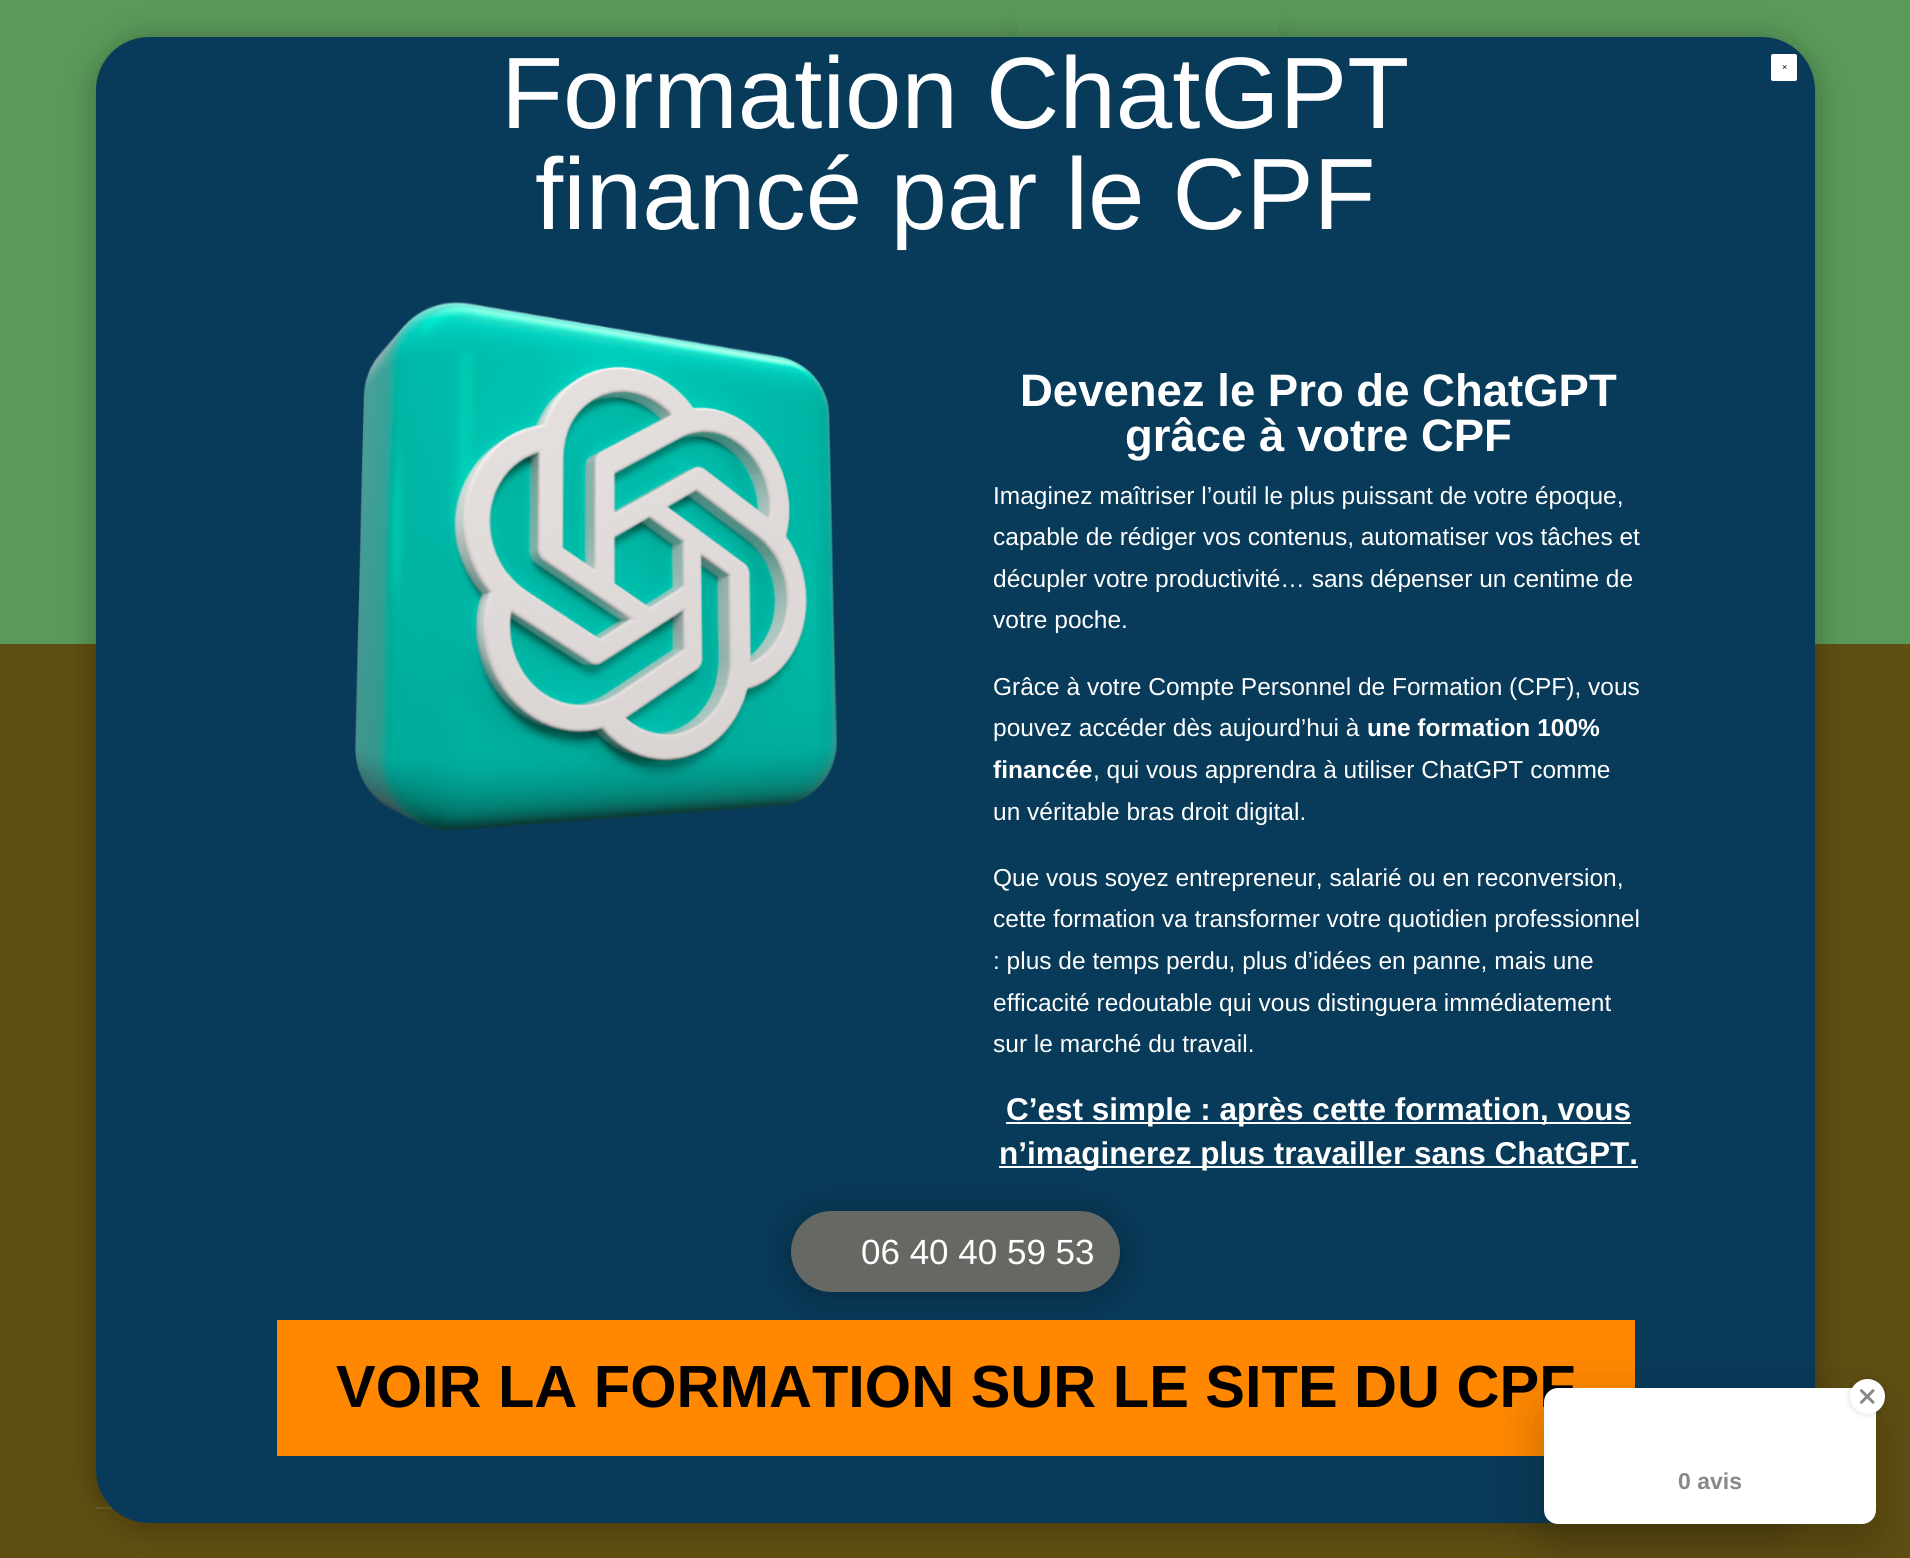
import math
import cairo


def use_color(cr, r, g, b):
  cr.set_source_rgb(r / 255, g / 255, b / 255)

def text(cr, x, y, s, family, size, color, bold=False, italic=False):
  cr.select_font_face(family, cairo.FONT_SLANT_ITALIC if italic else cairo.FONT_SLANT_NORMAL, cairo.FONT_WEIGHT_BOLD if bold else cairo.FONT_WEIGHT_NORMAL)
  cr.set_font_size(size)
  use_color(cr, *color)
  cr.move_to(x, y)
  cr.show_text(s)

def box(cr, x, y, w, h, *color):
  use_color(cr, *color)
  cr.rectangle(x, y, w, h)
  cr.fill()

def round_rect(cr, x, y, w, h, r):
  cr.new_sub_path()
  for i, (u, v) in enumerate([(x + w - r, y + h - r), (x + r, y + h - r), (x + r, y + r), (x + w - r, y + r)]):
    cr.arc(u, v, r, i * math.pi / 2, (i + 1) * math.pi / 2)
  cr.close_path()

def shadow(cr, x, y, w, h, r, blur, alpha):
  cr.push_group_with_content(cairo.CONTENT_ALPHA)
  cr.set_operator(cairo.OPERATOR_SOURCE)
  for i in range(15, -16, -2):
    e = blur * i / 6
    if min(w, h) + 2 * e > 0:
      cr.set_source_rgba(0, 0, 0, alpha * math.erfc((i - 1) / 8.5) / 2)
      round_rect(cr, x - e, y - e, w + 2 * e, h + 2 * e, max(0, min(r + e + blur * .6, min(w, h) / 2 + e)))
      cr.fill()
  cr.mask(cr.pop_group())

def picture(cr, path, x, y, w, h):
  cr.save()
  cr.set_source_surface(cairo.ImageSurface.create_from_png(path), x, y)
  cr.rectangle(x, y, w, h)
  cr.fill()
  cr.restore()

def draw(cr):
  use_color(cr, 90, 153, 89)
  cr.paint()
  cr.save()
  cr.set_fill_rule(cairo.FILL_RULE_EVEN_ODD)
  cr.new_path()
  cr.move_to(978, 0)
  cr.line_to(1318, 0)
  cr.line_to(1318, 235)
  cr.line_to(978, 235)
  cr.close_path()
  cr.move_to(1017, -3)
  cr.line_to(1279, -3)
  cr.line_to(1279, 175)
  cr.line_to(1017, 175)
  cr.close_path()
  cr.clip()
  use_color(cr, 18, 79, 18)
  shadow(cr, 1027, 28, 242, 158, 0, 16, 0.3)
  cr.restore()
  box(cr, 0, 644, 1910, 914, 96, 79, 18)
  box(cr, 96, 1507, 18, 2, 101, 100, 38)
  use_color(cr, 0, 0, 0)
  shadow(cr, 96, 40, 1719, 1486, 53, 16, 0.3)
  use_color(cr, 8, 58, 89)
  round_rect(cr, 96, 37, 1719, 1486, 53)
  cr.fill()
  picture(cr, "img_01.png", 355, 301, 482, 530)
  box(cr, 1006, 1122, 625, 2, 255, 255, 255)
  box(cr, 999, 1166, 639, 2, 255, 255, 255)
  use_color(cr, 0, 0, 0)
  shadow(cr, 791, 1215, 329, 80, 40, 16, 0.3)
  use_color(cr, 102, 104, 99)
  round_rect(cr, 791, 1211, 329, 81, 40.5)
  cr.fill()
  box(cr, 277, 1320, 1358, 136, 255, 136, 0)
  use_color(cr, 255, 255, 255)
  round_rect(cr, 1771, 54, 26, 27, 2)
  cr.fill()
  use_color(cr, 0, 0, 0)
  shadow(cr, 1544, 1405, 332, 137, 14, 26, 0.15)
  shadow(cr, 1544, 1414, 332, 137, 14, 35, 0.1)
  text(cr, 501, 128, "Formation ChatGPT", "Liberation Sans", 101.5, (255, 255, 255))
  text(cr, 535, 229, "financé par le CPF", "Liberation Sans", 101.5, (255, 255, 255))
  text(cr, 1020, 406, "Devenez le Pro de ChatGPT", "Liberation Sans", 45.5, (255, 255, 255), bold=True)
  text(cr, 1125, 451, "grâce à votre CPF", "Liberation Sans", 45.5, (255, 255, 255), bold=True)
  text(cr, 993, 504, "Imaginez maîtriser l’outil le plus puissant de votre époque,", "Liberation Sans", 24.5, (255, 255, 255))
  text(cr, 993, 545, "capable de rédiger vos contenus, automatiser vos tâches et", "Liberation Sans", 24.5, (255, 255, 255))
  text(cr, 993, 587, "décupler votre productivité… sans dépenser un centime de", "Liberation Sans", 24.5, (255, 255, 255))
  text(cr, 993, 628, "votre poche.", "Liberation Sans", 24.5, (255, 255, 255))
  text(cr, 993, 695, "Grâce à votre Compte Personnel de Formation (CPF), vous", "Liberation Sans", 24.5, (255, 255, 255))
  text(cr, 993, 736, "pouvez accéder dès aujourd’hui à", "Liberation Sans", 24.5, (255, 255, 255))
  text(cr, 1367, 736, "une formation 100%", "Liberation Sans", 24.5, (255, 255, 255), bold=True)
  text(cr, 993, 778, "financée", "Liberation Sans", 24.5, (255, 255, 255), bold=True)
  text(cr, 1093, 778, ", qui vous apprendra à utiliser ChatGPT comme", "Liberation Sans", 24.5, (255, 255, 255))
  text(cr, 993, 820, "un véritable bras droit digital.", "Liberation Sans", 24.5, (255, 255, 255))
  text(cr, 993, 886, "Que vous soyez entrepreneur, salarié ou en reconversion,", "Liberation Sans", 24.5, (255, 255, 255))
  text(cr, 993, 927, "cette formation va transformer votre quotidien professionnel", "Liberation Sans", 24.5, (255, 255, 255))
  text(cr, 993, 969, ": plus de temps perdu, plus d’idées en panne, mais une", "Liberation Sans", 24.5, (255, 255, 255))
  text(cr, 993, 1011, "efficacité redoutable qui vous distinguera immédiatement", "Liberation Sans", 24.5, (255, 255, 255))
  text(cr, 993, 1052, "sur le marché du travail.", "Liberation Sans", 24.5, (255, 255, 255))
  text(cr, 1006, 1120, "C’est simple : après cette formation, vous", "Liberation Sans", 31.5, (255, 255, 255), bold=True)
  text(cr, 999, 1164, "n’imaginerez plus travailler sans ChatGPT.", "Liberation Sans", 31.5, (255, 255, 255), bold=True)
  text(cr, 861, 1264, "06 40 40 59 53", "Liberation Sans", 35, (255, 255, 255))
  text(cr, 336, 1407, "VOIR LA FORMATION SUR LE SITE DU CPF", "Liberation Sans", 59.5, (0, 0, 0), bold=True)
  text(cr, 1782, 70, "×", "Liberation Sans", 9, (0, 0, 0))
  use_color(cr, 255, 255, 255)
  round_rect(cr, 1544, 1388, 332, 136, 14)
  cr.fill()
  use_color(cr, 0, 0, 0)
  shadow(cr, 1850, 1379, 35, 35, 17.5, 3.5, 0.15)
  use_color(cr, 255, 255, 255)
  cr.arc(1867.5, 1396.5, 17.5, 0, 2 * math.pi)
  cr.fill()
  picture(cr, "img_02.png", 1860, 1389, 15, 15)
  text(cr, 1678, 1489, "0 avis", "Liberation Sans", 23, (136, 136, 136), bold=True)


surface = cairo.ImageSurface(cairo.FORMAT_RGB24, 1910, 1558)
cr = cairo.Context(surface)
options = cairo.FontOptions()
options.set_hint_metrics(cairo.HINT_METRICS_OFF)
options.set_hint_style(cairo.HINT_STYLE_NONE)
cr.set_font_options(options)
cr.set_miter_limit(4)
draw(cr)
surface.write_to_png("out.png")
